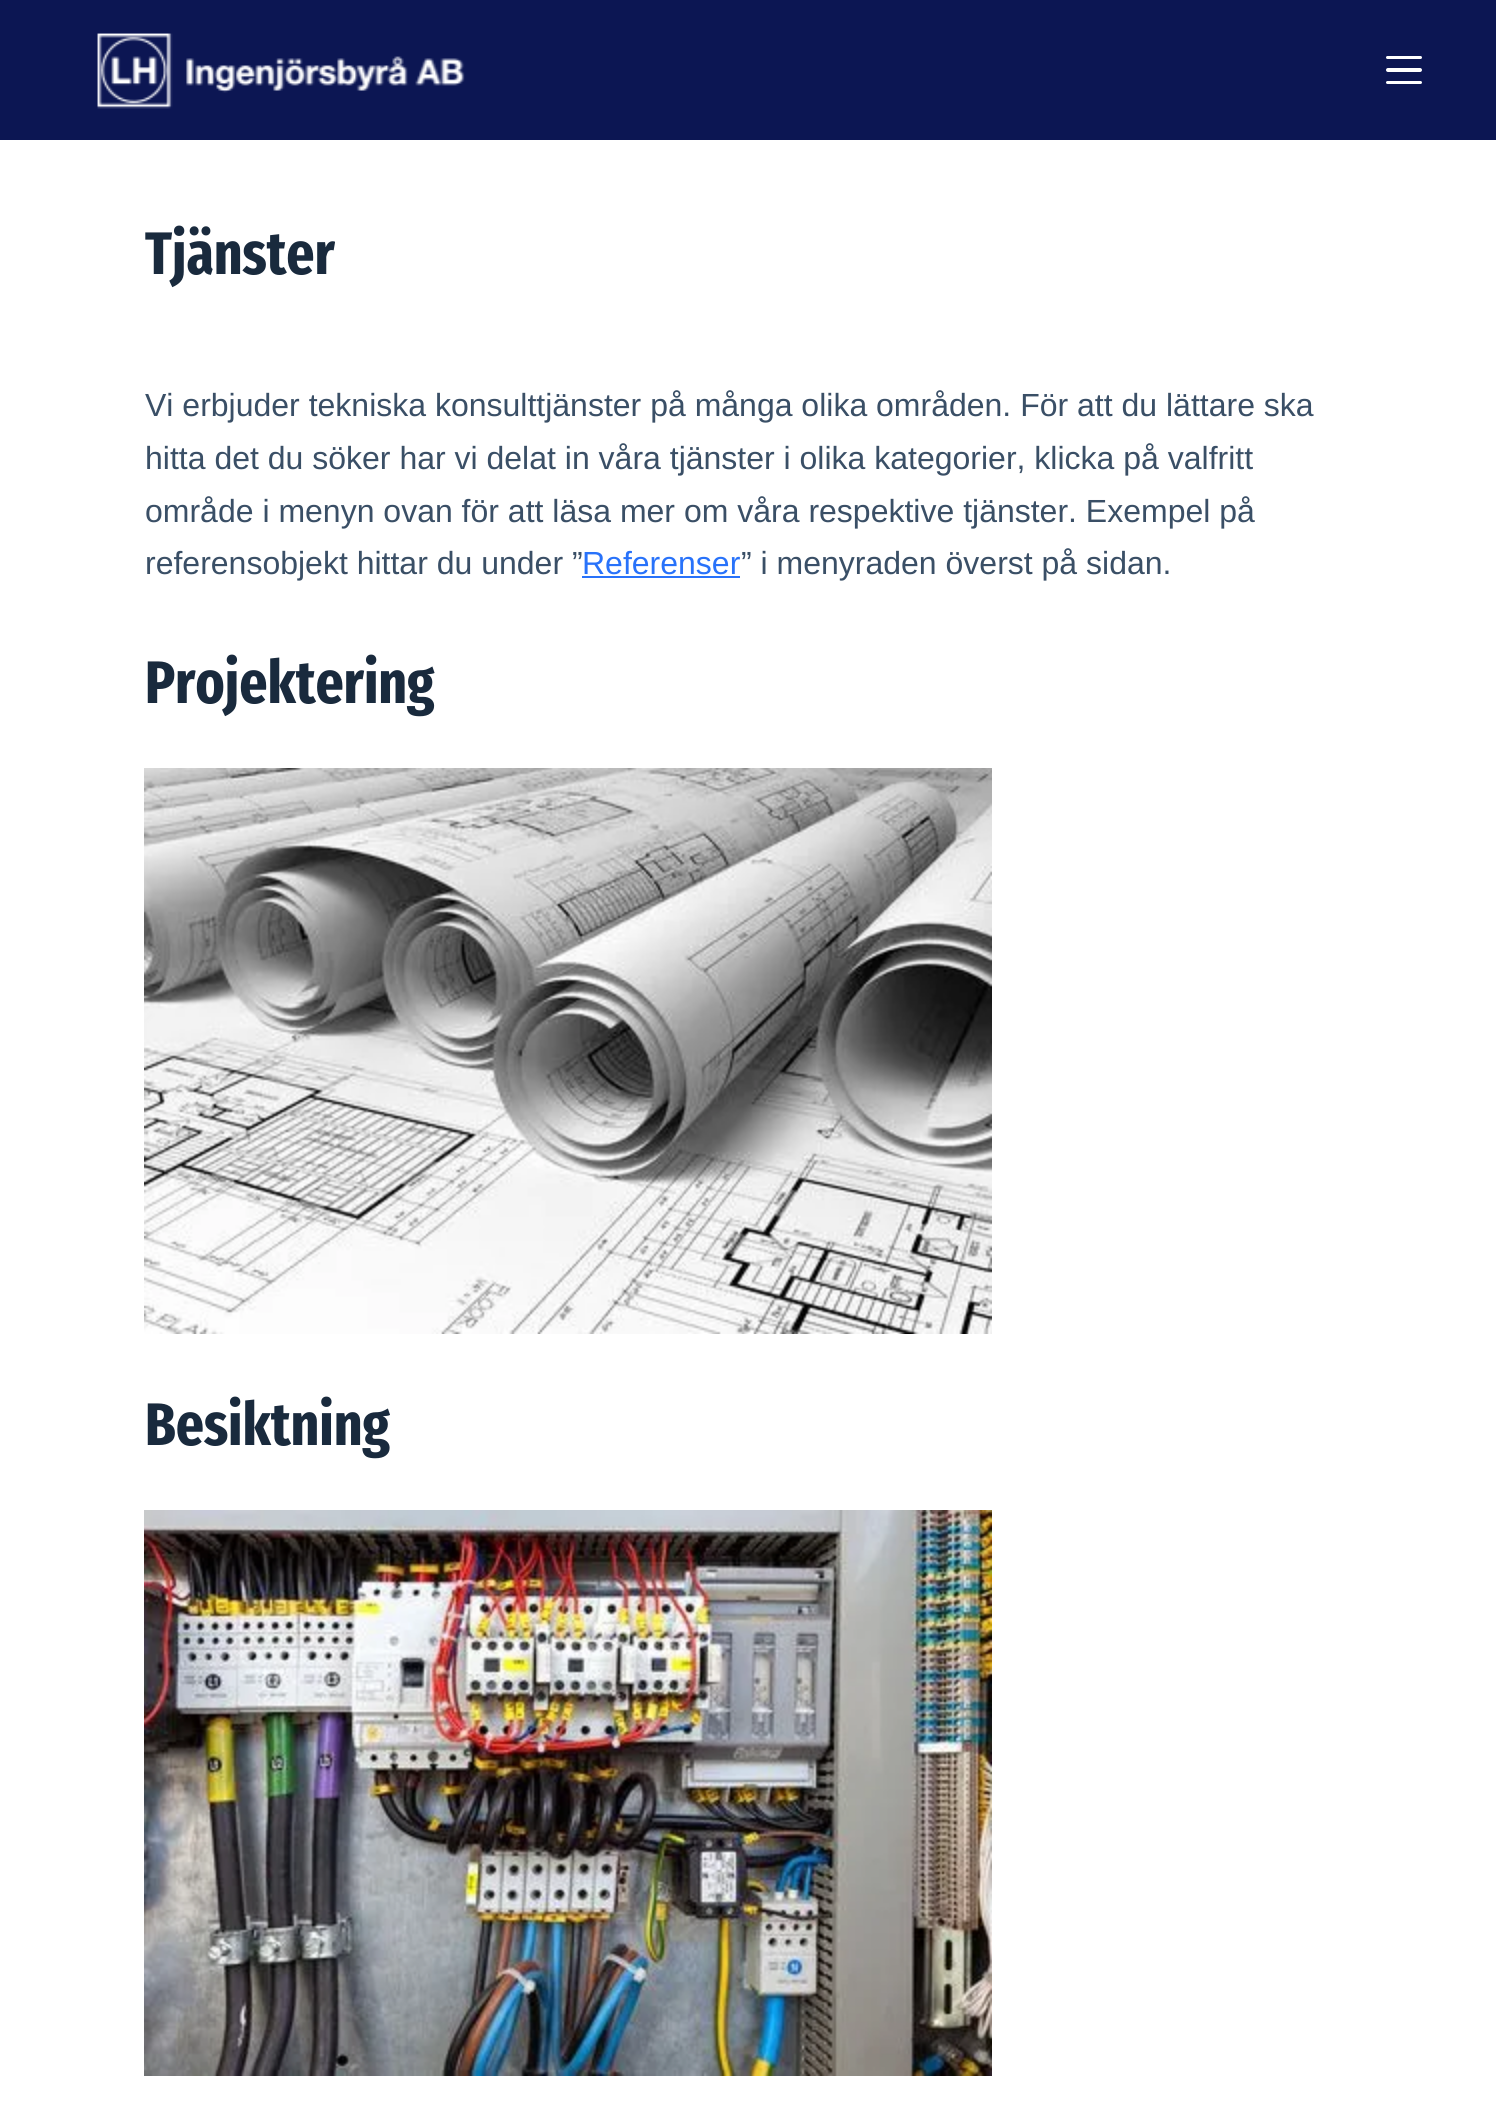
import math
import cairo


def use_color(cr, r, g, b):
  cr.set_source_rgb(r / 255, g / 255, b / 255)

def text(cr, x, y, s, family, size, color, bold=False, italic=False):
  cr.select_font_face(family, cairo.FONT_SLANT_ITALIC if italic else cairo.FONT_SLANT_NORMAL, cairo.FONT_WEIGHT_BOLD if bold else cairo.FONT_WEIGHT_NORMAL)
  cr.set_font_size(size)
  use_color(cr, *color)
  cr.move_to(x, y)
  cr.show_text(s)

def box(cr, x, y, w, h, *color):
  use_color(cr, *color)
  cr.rectangle(x, y, w, h)
  cr.fill()

def round_rect(cr, x, y, w, h, r):
  cr.new_sub_path()
  for i, (u, v) in enumerate([(x + w - r, y + h - r), (x + r, y + h - r), (x + r, y + r), (x + w - r, y + r)]):
    cr.arc(u, v, r, i * math.pi / 2, (i + 1) * math.pi / 2)
  cr.close_path()

def picture(cr, path, x, y, w, h):
  cr.save()
  cr.set_source_surface(cairo.ImageSurface.create_from_png(path), x, y)
  cr.rectangle(x, y, w, h)
  cr.fill()
  cr.restore()

def draw(cr):
  use_color(cr, 255, 255, 255)
  cr.paint()
  box(cr, 0, 0, 1496, 140, 12, 22, 83)
  picture(cr, "img_01.png", 97, 33, 368, 76)
  use_color(cr, 255, 255, 255)
  round_rect(cr, 1386, 56, 36, 3, 1.5)
  cr.fill()
  round_rect(cr, 1386, 68, 36, 4, 2)
  cr.fill()
  round_rect(cr, 1386, 81, 36, 3, 1.5)
  cr.fill()
  box(cr, 582, 576, 158, 2, 40, 114, 250)
  picture(cr, "img_02.png", 144, 768, 848, 566)
  picture(cr, "img_03.png", 144, 1510, 848, 566)
  text(cr, 145, 274, "Tjänster", "Fira Sans Extra Condensed", 60, (25, 42, 61), bold=True)
  text(cr, 145, 416, "Vi erbjuder tekniska konsulttjänster på många olika områden. För att du lättare ska", "Liberation Sans", 32, (58, 79, 102))
  text(cr, 145, 469, "hitta det du söker har vi delat in våra tjänster i olika kategorier, klicka på valfritt", "Liberation Sans", 32, (58, 79, 102))
  text(cr, 145, 522, "område i menyn ovan för att läsa mer om våra respektive tjänster. Exempel på", "Liberation Sans", 32, (58, 79, 102))
  text(cr, 145, 574, "referensobjekt hittar du under ”", "Liberation Sans", 32, (58, 79, 102))
  text(cr, 582, 574, "Referenser", "Liberation Sans", 32, (40, 114, 250))
  text(cr, 741, 574, "” i menyraden överst på sidan.", "Liberation Sans", 32, (58, 79, 102))
  text(cr, 145, 703, "Projektering", "Fira Sans Extra Condensed", 60, (25, 42, 61), bold=True)
  text(cr, 145, 1445, "Besiktning", "Fira Sans Extra Condensed", 60, (25, 42, 61), bold=True)


surface = cairo.ImageSurface(cairo.FORMAT_RGB24, 1496, 2125)
cr = cairo.Context(surface)
options = cairo.FontOptions()
options.set_hint_metrics(cairo.HINT_METRICS_OFF)
options.set_hint_style(cairo.HINT_STYLE_NONE)
cr.set_font_options(options)
cr.set_miter_limit(4)
draw(cr)
surface.write_to_png("out.png")
